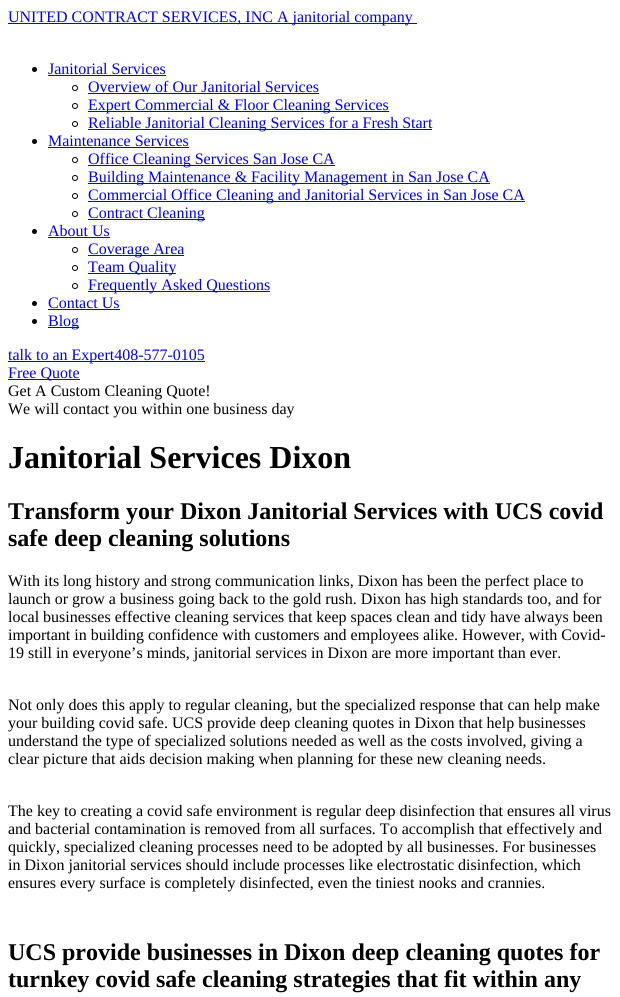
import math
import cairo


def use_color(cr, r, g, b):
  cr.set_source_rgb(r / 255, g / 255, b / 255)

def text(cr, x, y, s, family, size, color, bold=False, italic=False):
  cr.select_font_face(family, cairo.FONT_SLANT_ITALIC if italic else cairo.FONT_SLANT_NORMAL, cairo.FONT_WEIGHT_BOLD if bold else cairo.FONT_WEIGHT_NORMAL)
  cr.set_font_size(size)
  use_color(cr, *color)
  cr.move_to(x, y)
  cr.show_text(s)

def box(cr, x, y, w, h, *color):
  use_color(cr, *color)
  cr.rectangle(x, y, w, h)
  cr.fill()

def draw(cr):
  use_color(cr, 255, 255, 255)
  cr.paint()
  box(cr, 8, 23, 409, 1, 0, 0, 238)
  use_color(cr, 0, 0, 0)
  cr.arc(34.5, 69.5, 2.5, 0, 2 * math.pi)
  cr.fill()
  box(cr, 48, 75, 118, 1, 0, 0, 238)
  cr.arc(75, 88, 2.5, 0, 2 * math.pi)
  use_color(cr, 0, 0, 0)
  cr.set_line_width(1)
  cr.stroke()
  box(cr, 88, 93, 231, 1, 0, 0, 238)
  cr.arc(75, 106, 2.5, 0, 2 * math.pi)
  use_color(cr, 0, 0, 0)
  cr.stroke()
  box(cr, 88, 111, 301, 1, 0, 0, 238)
  cr.arc(75, 124, 2.5, 0, 2 * math.pi)
  use_color(cr, 0, 0, 0)
  cr.stroke()
  box(cr, 88, 129, 344, 1, 0, 0, 238)
  use_color(cr, 0, 0, 0)
  cr.arc(34.5, 141.5, 2.5, 0, 2 * math.pi)
  cr.fill()
  box(cr, 48, 147, 141, 1, 0, 0, 238)
  cr.arc(75, 160, 2.5, 0, 2 * math.pi)
  use_color(cr, 0, 0, 0)
  cr.stroke()
  box(cr, 88, 165, 247, 1, 0, 0, 238)
  cr.arc(75, 178, 2.5, 0, 2 * math.pi)
  use_color(cr, 0, 0, 0)
  cr.stroke()
  box(cr, 88, 183, 402, 1, 0, 0, 238)
  cr.arc(75, 196, 2.5, 0, 2 * math.pi)
  use_color(cr, 0, 0, 0)
  cr.stroke()
  box(cr, 88, 201, 437, 1, 0, 0, 238)
  cr.arc(75, 214, 2.5, 0, 2 * math.pi)
  use_color(cr, 0, 0, 0)
  cr.stroke()
  box(cr, 88, 219, 117, 1, 0, 0, 238)
  use_color(cr, 0, 0, 0)
  cr.arc(34.5, 231.5, 2.5, 0, 2 * math.pi)
  cr.fill()
  box(cr, 48, 237, 62, 1, 0, 0, 238)
  cr.arc(75, 250, 2.5, 0, 2 * math.pi)
  use_color(cr, 0, 0, 0)
  cr.stroke()
  box(cr, 88, 255, 96, 1, 0, 0, 238)
  cr.arc(75, 268, 2.5, 0, 2 * math.pi)
  use_color(cr, 0, 0, 0)
  cr.stroke()
  box(cr, 88, 273, 88, 1, 0, 0, 238)
  cr.arc(75, 286, 2.5, 0, 2 * math.pi)
  use_color(cr, 0, 0, 0)
  cr.stroke()
  box(cr, 88, 291, 182, 1, 0, 0, 238)
  use_color(cr, 0, 0, 0)
  cr.arc(34.5, 303.5, 2.5, 0, 2 * math.pi)
  cr.fill()
  box(cr, 48, 309, 72, 1, 0, 0, 238)
  use_color(cr, 0, 0, 0)
  cr.arc(34.5, 321.5, 2.5, 0, 2 * math.pi)
  cr.fill()
  box(cr, 48, 327, 31, 1, 0, 0, 238)
  box(cr, 8, 361, 106, 1, 0, 0, 238)
  box(cr, 114, 361, 91, 1, 0, 0, 238)
  box(cr, 8, 379, 72, 1, 0, 0, 238)
  text(cr, 8, 22, "UNITED CONTRACT SERVICES, INC A janitorial company", "Liberation Serif", 16, (0, 0, 238))
  text(cr, 48, 74, "Janitorial Services", "Liberation Serif", 16, (0, 0, 238))
  text(cr, 88, 92, "Overview of Our Janitorial Services", "Liberation Serif", 16, (0, 0, 238))
  text(cr, 88, 110, "Expert Commercial & Floor Cleaning Services", "Liberation Serif", 16, (0, 0, 238))
  text(cr, 88, 128, "Reliable Janitorial Cleaning Services for a Fresh Start", "Liberation Serif", 16, (0, 0, 238))
  text(cr, 48, 146, "Maintenance Services", "Liberation Serif", 16, (0, 0, 238))
  text(cr, 88, 164, "Office Cleaning Services San Jose CA", "Liberation Serif", 16, (0, 0, 238))
  text(cr, 88, 182, "Building Maintenance & Facility Management in San Jose CA", "Liberation Serif", 16, (0, 0, 238))
  text(cr, 88, 200, "Commercial Office Cleaning and Janitorial Services in San Jose CA", "Liberation Serif", 16, (0, 0, 238))
  text(cr, 88, 218, "Contract Cleaning", "Liberation Serif", 16, (0, 0, 238))
  text(cr, 48, 236, "About Us", "Liberation Serif", 16, (0, 0, 238))
  text(cr, 88, 254, "Coverage Area", "Liberation Serif", 16, (0, 0, 238))
  text(cr, 88, 272, "Team Quality", "Liberation Serif", 16, (0, 0, 238))
  text(cr, 88, 290, "Frequently Asked Questions", "Liberation Serif", 16, (0, 0, 238))
  text(cr, 48, 308, "Contact Us", "Liberation Serif", 16, (0, 0, 238))
  text(cr, 48, 326, "Blog", "Liberation Serif", 16, (0, 0, 238))
  text(cr, 8, 360, "talk to an Expert408-577-0105", "Liberation Serif", 16, (0, 0, 238))
  text(cr, 8, 378, "Free Quote", "Liberation Serif", 16, (0, 0, 238))
  text(cr, 8, 396, "Get A Custom Cleaning Quote!", "Liberation Serif", 16, (0, 0, 0))
  text(cr, 8, 414, "We will contact you within one business day", "Liberation Serif", 16, (0, 0, 0))
  text(cr, 8, 468, "Janitorial Services Dixon", "Liberation Serif", 32, (0, 0, 0), bold=True)
  text(cr, 8, 519, "Transform your Dixon Janitorial Services with UCS covid", "Liberation Serif", 24, (0, 0, 0), bold=True)
  text(cr, 8, 546, "safe deep cleaning solutions", "Liberation Serif", 24, (0, 0, 0), bold=True)
  text(cr, 8, 586, "With its long history and strong communication links, Dixon has been the perfect place to", "Liberation Serif", 16, (0, 0, 0))
  text(cr, 8, 604, "launch or grow a business going back to the gold rush. Dixon has high standards too, and for", "Liberation Serif", 16, (0, 0, 0))
  text(cr, 8, 622, "local businesses effective cleaning services that keep spaces clean and tidy have always been", "Liberation Serif", 16, (0, 0, 0))
  text(cr, 8, 640, "important in building confidence with customers and employees alike. However, with Covid-", "Liberation Serif", 16, (0, 0, 0))
  text(cr, 8, 658, "19 still in everyone’s minds, janitorial services in Dixon are more important than ever.", "Liberation Serif", 16, (0, 0, 0))
  text(cr, 8, 710, "Not only does this apply to regular cleaning, but the specialized response that can help make", "Liberation Serif", 16, (0, 0, 0))
  text(cr, 8, 728, "your building covid safe. UCS provide deep cleaning quotes in Dixon that help businesses", "Liberation Serif", 16, (0, 0, 0))
  text(cr, 8, 746, "understand the type of specialized solutions needed as well as the costs involved, giving a", "Liberation Serif", 16, (0, 0, 0))
  text(cr, 8, 764, "clear picture that aids decision making when planning for these new cleaning needs.", "Liberation Serif", 16, (0, 0, 0))
  text(cr, 8, 816, "The key to creating a covid safe environment is regular deep disinfection that ensures all virus", "Liberation Serif", 16, (0, 0, 0))
  text(cr, 8, 834, "and bacterial contamination is removed from all surfaces. To accomplish that effectively and", "Liberation Serif", 16, (0, 0, 0))
  text(cr, 8, 852, "quickly, specialized cleaning processes need to be adopted by all businesses. For businesses", "Liberation Serif", 16, (0, 0, 0))
  text(cr, 8, 870, "in Dixon janitorial services should include processes like electrostatic disinfection, which", "Liberation Serif", 16, (0, 0, 0))
  text(cr, 8, 888, "ensures every surface is completely disinfected, even the tiniest nooks and crannies.", "Liberation Serif", 16, (0, 0, 0))
  text(cr, 8, 960, "UCS provide businesses in Dixon deep cleaning quotes for", "Liberation Serif", 24, (0, 0, 0), bold=True)
  text(cr, 8, 987, "turnkey covid safe cleaning strategies that fit within any", "Liberation Serif", 24, (0, 0, 0), bold=True)


surface = cairo.ImageSurface(cairo.FORMAT_RGB24, 620, 997)
cr = cairo.Context(surface)
options = cairo.FontOptions()
options.set_hint_metrics(cairo.HINT_METRICS_OFF)
options.set_hint_style(cairo.HINT_STYLE_NONE)
cr.set_font_options(options)
cr.set_miter_limit(4)
draw(cr)
surface.write_to_png("out.png")
